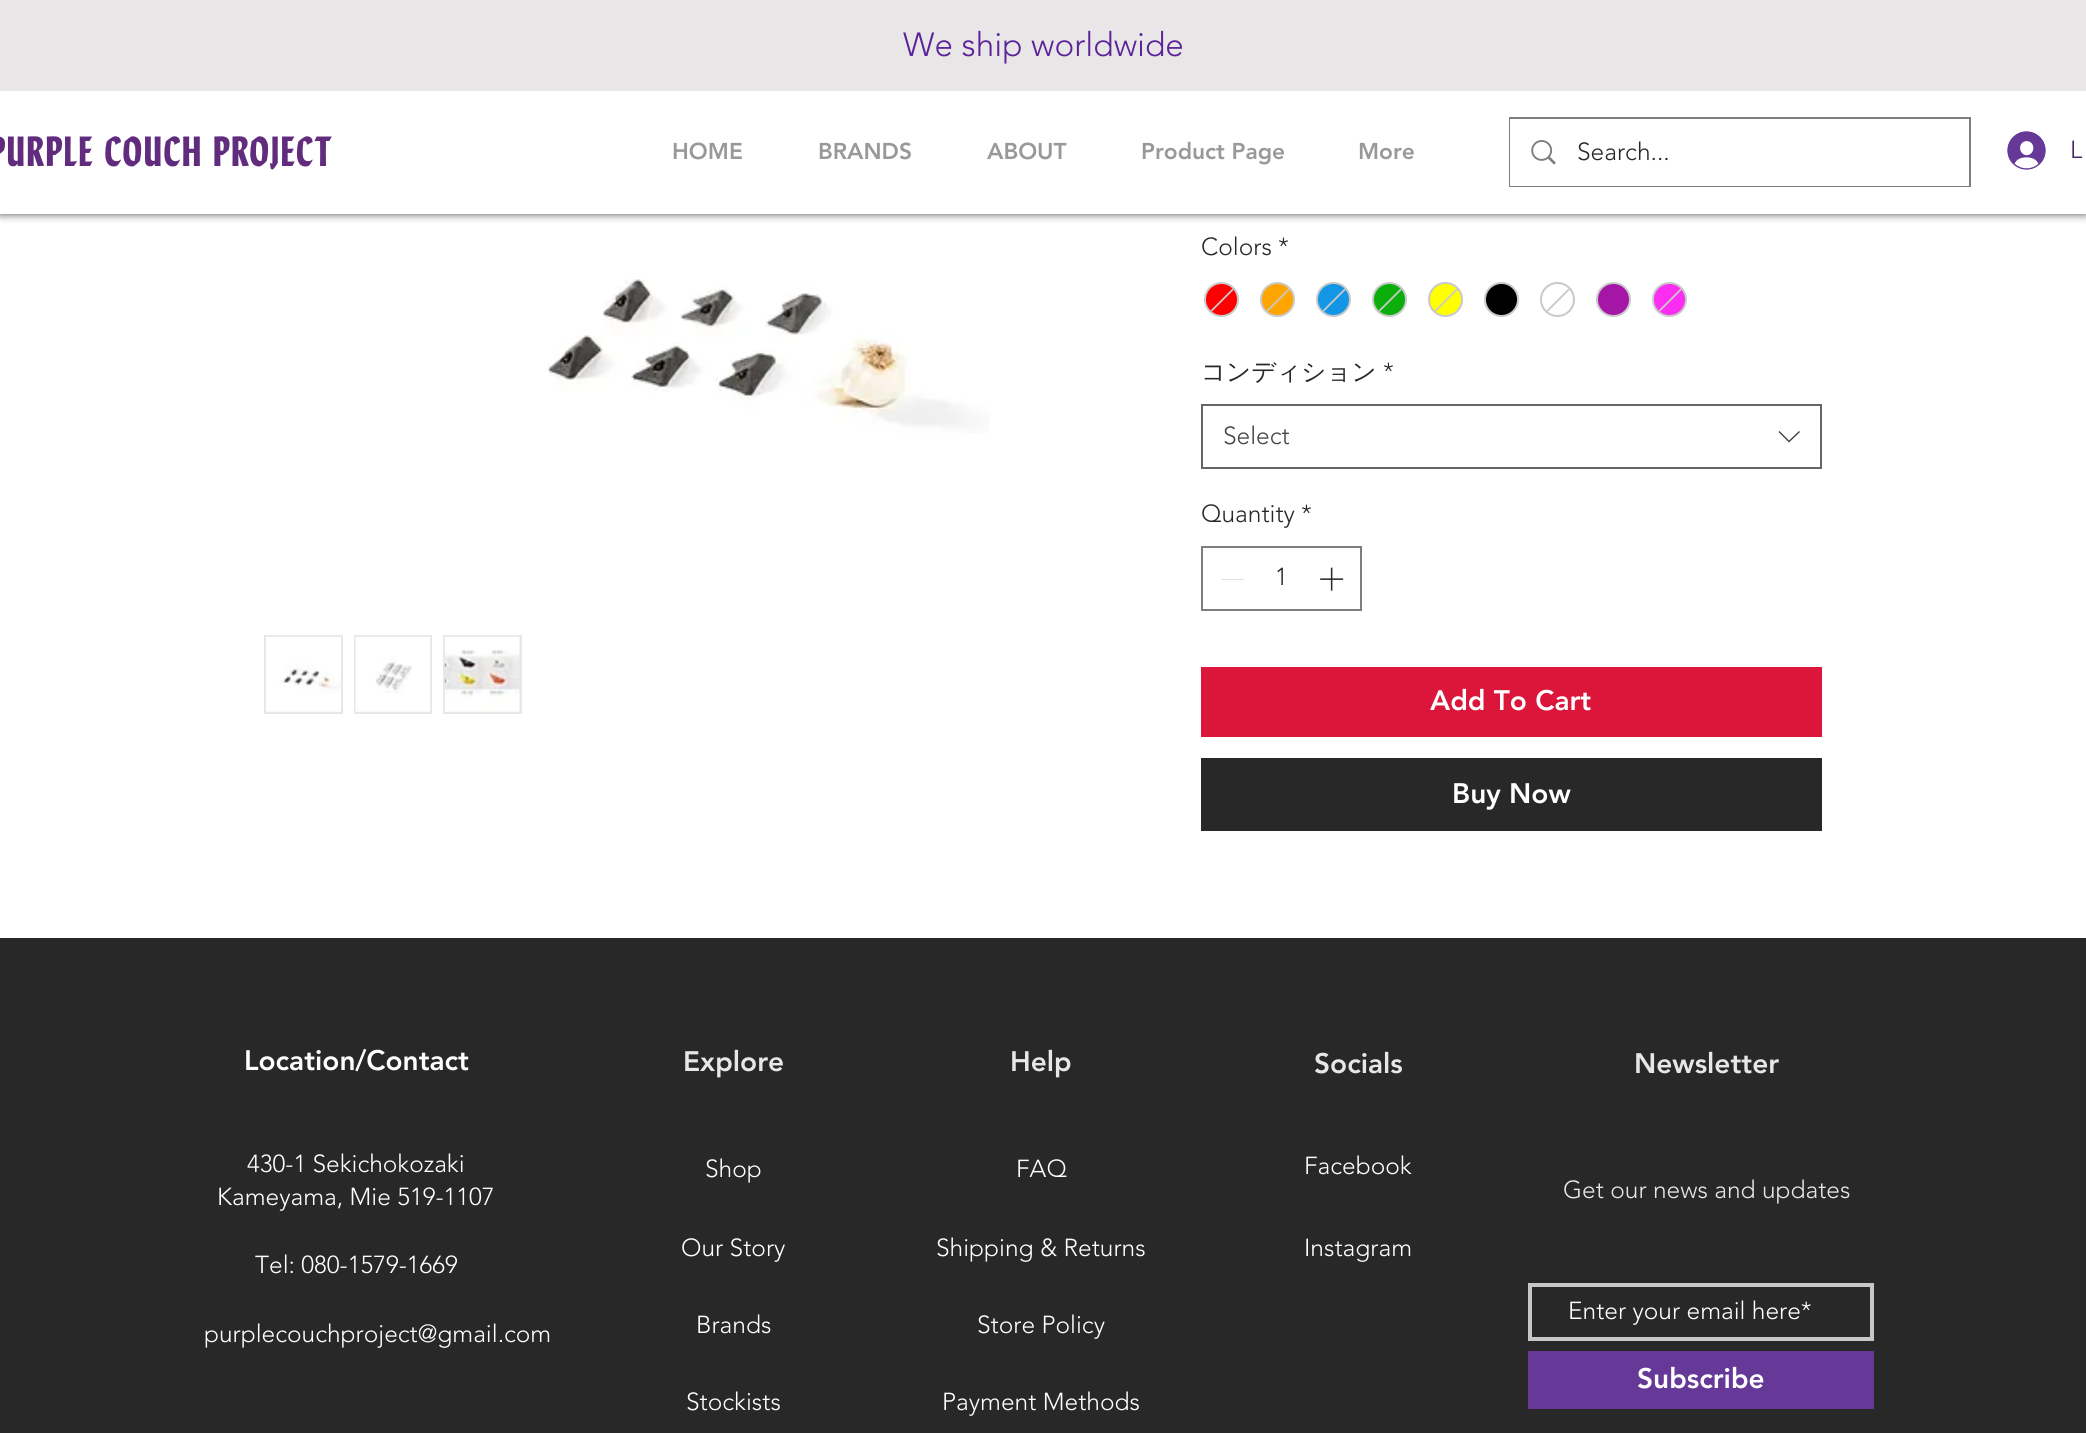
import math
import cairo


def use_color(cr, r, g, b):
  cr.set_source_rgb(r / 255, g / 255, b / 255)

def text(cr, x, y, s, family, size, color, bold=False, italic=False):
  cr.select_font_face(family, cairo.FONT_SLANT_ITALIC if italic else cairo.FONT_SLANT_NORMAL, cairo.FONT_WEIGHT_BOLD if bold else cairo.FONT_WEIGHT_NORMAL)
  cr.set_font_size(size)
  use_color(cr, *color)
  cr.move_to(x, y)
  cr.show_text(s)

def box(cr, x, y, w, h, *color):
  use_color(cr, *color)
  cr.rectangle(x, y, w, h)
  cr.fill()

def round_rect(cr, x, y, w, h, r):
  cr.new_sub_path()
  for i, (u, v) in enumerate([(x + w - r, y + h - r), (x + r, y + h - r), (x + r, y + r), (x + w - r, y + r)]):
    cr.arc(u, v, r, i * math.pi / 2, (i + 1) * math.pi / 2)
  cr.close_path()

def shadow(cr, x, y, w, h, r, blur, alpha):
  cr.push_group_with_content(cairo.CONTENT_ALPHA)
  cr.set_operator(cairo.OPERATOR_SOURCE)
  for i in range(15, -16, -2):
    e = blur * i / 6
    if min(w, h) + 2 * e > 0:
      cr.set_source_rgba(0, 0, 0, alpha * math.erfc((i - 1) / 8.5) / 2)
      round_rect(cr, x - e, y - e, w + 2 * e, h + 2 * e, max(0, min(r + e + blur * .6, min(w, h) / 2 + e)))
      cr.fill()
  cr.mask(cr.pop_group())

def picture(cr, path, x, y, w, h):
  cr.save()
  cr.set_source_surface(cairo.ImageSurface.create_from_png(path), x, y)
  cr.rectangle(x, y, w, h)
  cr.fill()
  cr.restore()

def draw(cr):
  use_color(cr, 255, 255, 255)
  cr.paint()
  use_color(cr, 0, 0, 0)
  shadow(cr, 0, 0, 2086, 214, 0, 4.5, 0.7)
  box(cr, 0, 91, 2086, 123, 255, 255, 255)
  box(cr, 0, 0, 2086, 91, 232, 230, 230)
  picture(cr, "img_01.png", 0, 136, 332, 34)
  cr.rectangle(1510, 118, 460, 68)
  use_color(cr, 126, 126, 126)
  cr.stroke()
  box(cr, 1510, 119, 459, 67, 255, 255, 255)
  picture(cr, "img_02.png", 1531, 140, 25, 25)
  picture(cr, "img_03.png", 2007, 131, 39, 39)
  picture(cr, "img_04.png", 547, 279, 443, 154)
  box(cr, 264, 635, 79, 79, 232, 230, 230)
  picture(cr, "img_05.png", 266, 636, 75, 76)
  box(cr, 354, 635, 78, 79, 232, 230, 230)
  picture(cr, "img_06.png", 355, 636, 76, 76)
  box(cr, 443, 635, 79, 79, 232, 230, 230)
  picture(cr, "img_07.png", 444, 636, 76, 76)
  use_color(cr, 255, 0, 0)
  cr.arc(1221.5, 299.5, 16.5, 0, 2 * math.pi)
  cr.fill_preserve()
  use_color(cr, 201, 201, 201)
  cr.stroke()
  cr.new_path()
  cr.move_to(1233.5, 290)
  cr.line_to(1212, 311.5)
  cr.line_to(1210.5, 310.5)
  cr.line_to(1232.5, 288.5)
  cr.close_path()
  cr.fill()
  use_color(cr, 255, 165, 0)
  cr.arc(1277.5, 299.5, 16.5, 0, 2 * math.pi)
  cr.fill_preserve()
  use_color(cr, 201, 201, 201)
  cr.stroke()
  cr.new_path()
  cr.move_to(1289.5, 290)
  cr.line_to(1268, 311.5)
  cr.line_to(1266.5, 310.5)
  cr.line_to(1288.5, 288.5)
  cr.close_path()
  cr.fill()
  use_color(cr, 19, 150, 229)
  cr.arc(1333.5, 299.5, 16.5, 0, 2 * math.pi)
  cr.fill_preserve()
  use_color(cr, 201, 201, 201)
  cr.stroke()
  cr.new_path()
  cr.move_to(1345.5, 290)
  cr.line_to(1324, 311.5)
  cr.line_to(1322.5, 310.5)
  cr.line_to(1344.5, 288.5)
  cr.close_path()
  cr.fill()
  use_color(cr, 11, 174, 11)
  cr.arc(1389.5, 299.5, 16.5, 0, 2 * math.pi)
  cr.fill_preserve()
  use_color(cr, 201, 201, 201)
  cr.stroke()
  cr.new_path()
  cr.move_to(1401.5, 290)
  cr.line_to(1380, 311.5)
  cr.line_to(1378.5, 310.5)
  cr.line_to(1400.5, 288.5)
  cr.close_path()
  cr.fill()
  use_color(cr, 255, 255, 0)
  cr.arc(1445.5, 299.5, 16.5, 0, 2 * math.pi)
  cr.fill_preserve()
  use_color(cr, 201, 201, 201)
  cr.stroke()
  cr.new_path()
  cr.move_to(1457.5, 290)
  cr.line_to(1436, 311.5)
  cr.line_to(1434.5, 310.5)
  cr.line_to(1456.5, 288.5)
  cr.close_path()
  cr.fill()
  use_color(cr, 0, 0, 0)
  cr.arc(1501.5, 299.5, 16.5, 0, 2 * math.pi)
  cr.fill_preserve()
  use_color(cr, 201, 201, 201)
  cr.stroke()
  cr.arc(1557.5, 299.5, 16.5, 0, 2 * math.pi)
  cr.stroke()
  cr.new_path()
  cr.move_to(1569.5, 290)
  cr.line_to(1548, 311.5)
  cr.line_to(1546.5, 310.5)
  cr.line_to(1568.5, 288.5)
  cr.close_path()
  cr.fill()
  use_color(cr, 166, 22, 166)
  cr.arc(1613.5, 299.5, 16.5, 0, 2 * math.pi)
  cr.fill_preserve()
  use_color(cr, 201, 201, 201)
  cr.stroke()
  use_color(cr, 251, 45, 241)
  cr.arc(1669.5, 299.5, 16.5, 0, 2 * math.pi)
  cr.fill_preserve()
  use_color(cr, 201, 201, 201)
  cr.stroke()
  cr.new_path()
  cr.move_to(1681.5, 290)
  cr.line_to(1660, 311.5)
  cr.line_to(1658.5, 310.5)
  cr.line_to(1680.5, 288.5)
  cr.close_path()
  cr.fill()
  cr.rectangle(1202, 405, 619, 63)
  use_color(cr, 102, 102, 102)
  cr.stroke()
  use_color(cr, 68, 68, 68)
  cr.set_fill_rule(cairo.FILL_RULE_EVEN_ODD)
  cr.new_path()
  cr.move_to(1799, 431)
  cr.line_to(1800, 432)
  cr.line_to(1789, 442.5)
  cr.line_to(1778.5, 432)
  cr.line_to(1779.5, 431)
  cr.line_to(1789, 440.5)
  cr.close_path()
  cr.fill()
  cr.rectangle(1202, 547, 159, 63)
  use_color(cr, 126, 126, 126)
  cr.stroke()
  box(cr, 1221, 579, 23, 1, 227, 227, 227)
  picture(cr, "img_08.png", 1320, 567, 24, 24)
  box(cr, 1201, 667, 621, 70, 219, 22, 58)
  box(cr, 1201, 758, 621, 73, 40, 40, 40)
  box(cr, 0, 938, 2086, 495, 40, 40, 40)
  cr.rectangle(1530, 1285, 342, 54)
  use_color(cr, 199, 199, 199)
  cr.set_line_width(4)
  cr.stroke()
  box(cr, 1528, 1351, 346, 58, 102, 56, 152)
  text(cr, 903, 56, "We ship worldwide", "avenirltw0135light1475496 Light", 33.25, (91, 34, 153))
  text(cr, 672, 159, "HOME", "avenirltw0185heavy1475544 Black", 22.75, (153, 153, 153))
  text(cr, 818, 159, "BRANDS", "avenirltw0185heavy1475544 Black", 22.75, (153, 153, 153))
  text(cr, 987, 159, "ABOUT", "avenirltw0185heavy1475544 Black", 22.75, (153, 153, 153))
  text(cr, 1141, 159, "Product Page", "avenirltw0185heavy1475544 Black", 22.75, (153, 153, 153))
  text(cr, 1358, 159, "More", "avenirltw0185heavy1475544 Black", 22.75, (153, 153, 153))
  text(cr, 1577, 160, "Search...", "avenirltw0135light1475496 Light", 24.5, (40, 40, 40))
  text(cr, 2070, 158, "L", "avenirltw0135light1475496 Light", 24.5, (68, 37, 101))
  text(cr, 1201, 255, "Colors", "avenirltw0135light1475496 Light", 24.5, (40, 40, 40))
  text(cr, 1278, 255, "*", "avenirltw0135light1475496 Light", 24.5, (40, 40, 40))
  text(cr, 1201, 380, "コンディション", "WenQuanYi Zen Hei Medium", 24.5, (40, 40, 40))
  text(cr, 1383, 380, "*", "avenirltw0135light1475496 Light", 24.5, (40, 40, 40))
  text(cr, 1223, 444, "Select", "avenirltw0135light1475496 Light", 24.5, (68, 68, 68))
  text(cr, 1201, 522, "Quantity", "avenirltw0135light1475496 Light", 24.5, (40, 40, 40))
  text(cr, 1301, 522, "*", "avenirltw0135light1475496 Light", 24.5, (40, 40, 40))
  text(cr, 1275, 585, "1", "avenirltw0135light1475496 Light", 24.5, (40, 40, 40))
  text(cr, 1430, 710, "Add To Cart", "avenirltw0185heavy1475544 Black", 28, (255, 255, 255))
  text(cr, 1452, 803, "Buy Now", "avenirltw0185heavy1475544 Black", 28, (255, 255, 255))
  text(cr, 244, 1070, "Location/Contact", "avenirltw0185heavy1475544 Black", 28, (255, 255, 255))
  text(cr, 683, 1071, "Explore", "avenirltw0185heavy1475544 Black", 28, (232, 230, 230))
  text(cr, 1010, 1071, "Help", "avenirltw0185heavy1475544 Black", 28, (232, 230, 230))
  text(cr, 1314, 1073, "Socials", "avenirltw0185heavy1475544 Black", 28, (232, 230, 230))
  text(cr, 1634, 1073, "Newsletter", "avenirltw0185heavy1475544 Black", 28, (232, 230, 230))
  text(cr, 247, 1172, "430-1 Sekichokozaki", "avenirltw0135light1475496 Light", 24.5, (255, 255, 255))
  text(cr, 705, 1177, "Shop", "avenirltw0135light1475496 Light", 24.5, (255, 255, 255))
  text(cr, 1016, 1177, "FAQ", "avenirltw0135light1475496 Light", 24.5, (255, 255, 255))
  text(cr, 1304, 1174, "Facebook", "avenirltw0135light1475496 Light", 24.5, (255, 255, 255))
  text(cr, 217, 1205, "Kameyama, Mie 519-1107", "avenirltw0135light1475496 Light", 24.5, (255, 255, 255))
  text(cr, 1563, 1198, "Get our news and updates", "avenirltw0135light1475496 Light", 24.5, (232, 230, 230))
  text(cr, 1568, 1319, "Enter your email here*", "avenirltw0135light1475496 Light", 24.5, (255, 255, 255))
  text(cr, 1637, 1388, "Subscribe", "avenirltw0185heavy1475544 Black", 28, (255, 255, 255))
  text(cr, 681, 1256, "Our Story", "avenirltw0135light1475496 Light", 24.5, (255, 255, 255))
  text(cr, 936, 1256, "Shipping & Returns", "avenirltw0135light1475496 Light", 24.5, (255, 255, 255))
  text(cr, 1304, 1256, "Instagram", "avenirltw0135light1475496 Light", 24.5, (255, 255, 255))
  text(cr, 255, 1273, "Tel: 080-1579-1669", "avenirltw0135light1475496 Light", 24.5, (255, 255, 255))
  text(cr, 204, 1342, "purplecouchproject@gmail.com", "avenirltw0135light1475496 Light", 24.5, (255, 255, 255))
  text(cr, 696, 1333, "Brands", "avenirltw0135light1475496 Light", 24.5, (255, 255, 255))
  text(cr, 977, 1333, "Store Policy", "avenirltw0135light1475496 Light", 24.5, (255, 255, 255))
  text(cr, 686, 1410, "Stockists", "avenirltw0135light1475496 Light", 24.5, (255, 255, 255))
  text(cr, 942, 1410, "Payment Methods", "avenirltw0135light1475496 Light", 24.5, (255, 255, 255))


surface = cairo.ImageSurface(cairo.FORMAT_RGB24, 2086, 1433)
cr = cairo.Context(surface)
options = cairo.FontOptions()
options.set_hint_metrics(cairo.HINT_METRICS_OFF)
options.set_hint_style(cairo.HINT_STYLE_NONE)
cr.set_font_options(options)
cr.set_miter_limit(4)
draw(cr)
surface.write_to_png("out.png")
